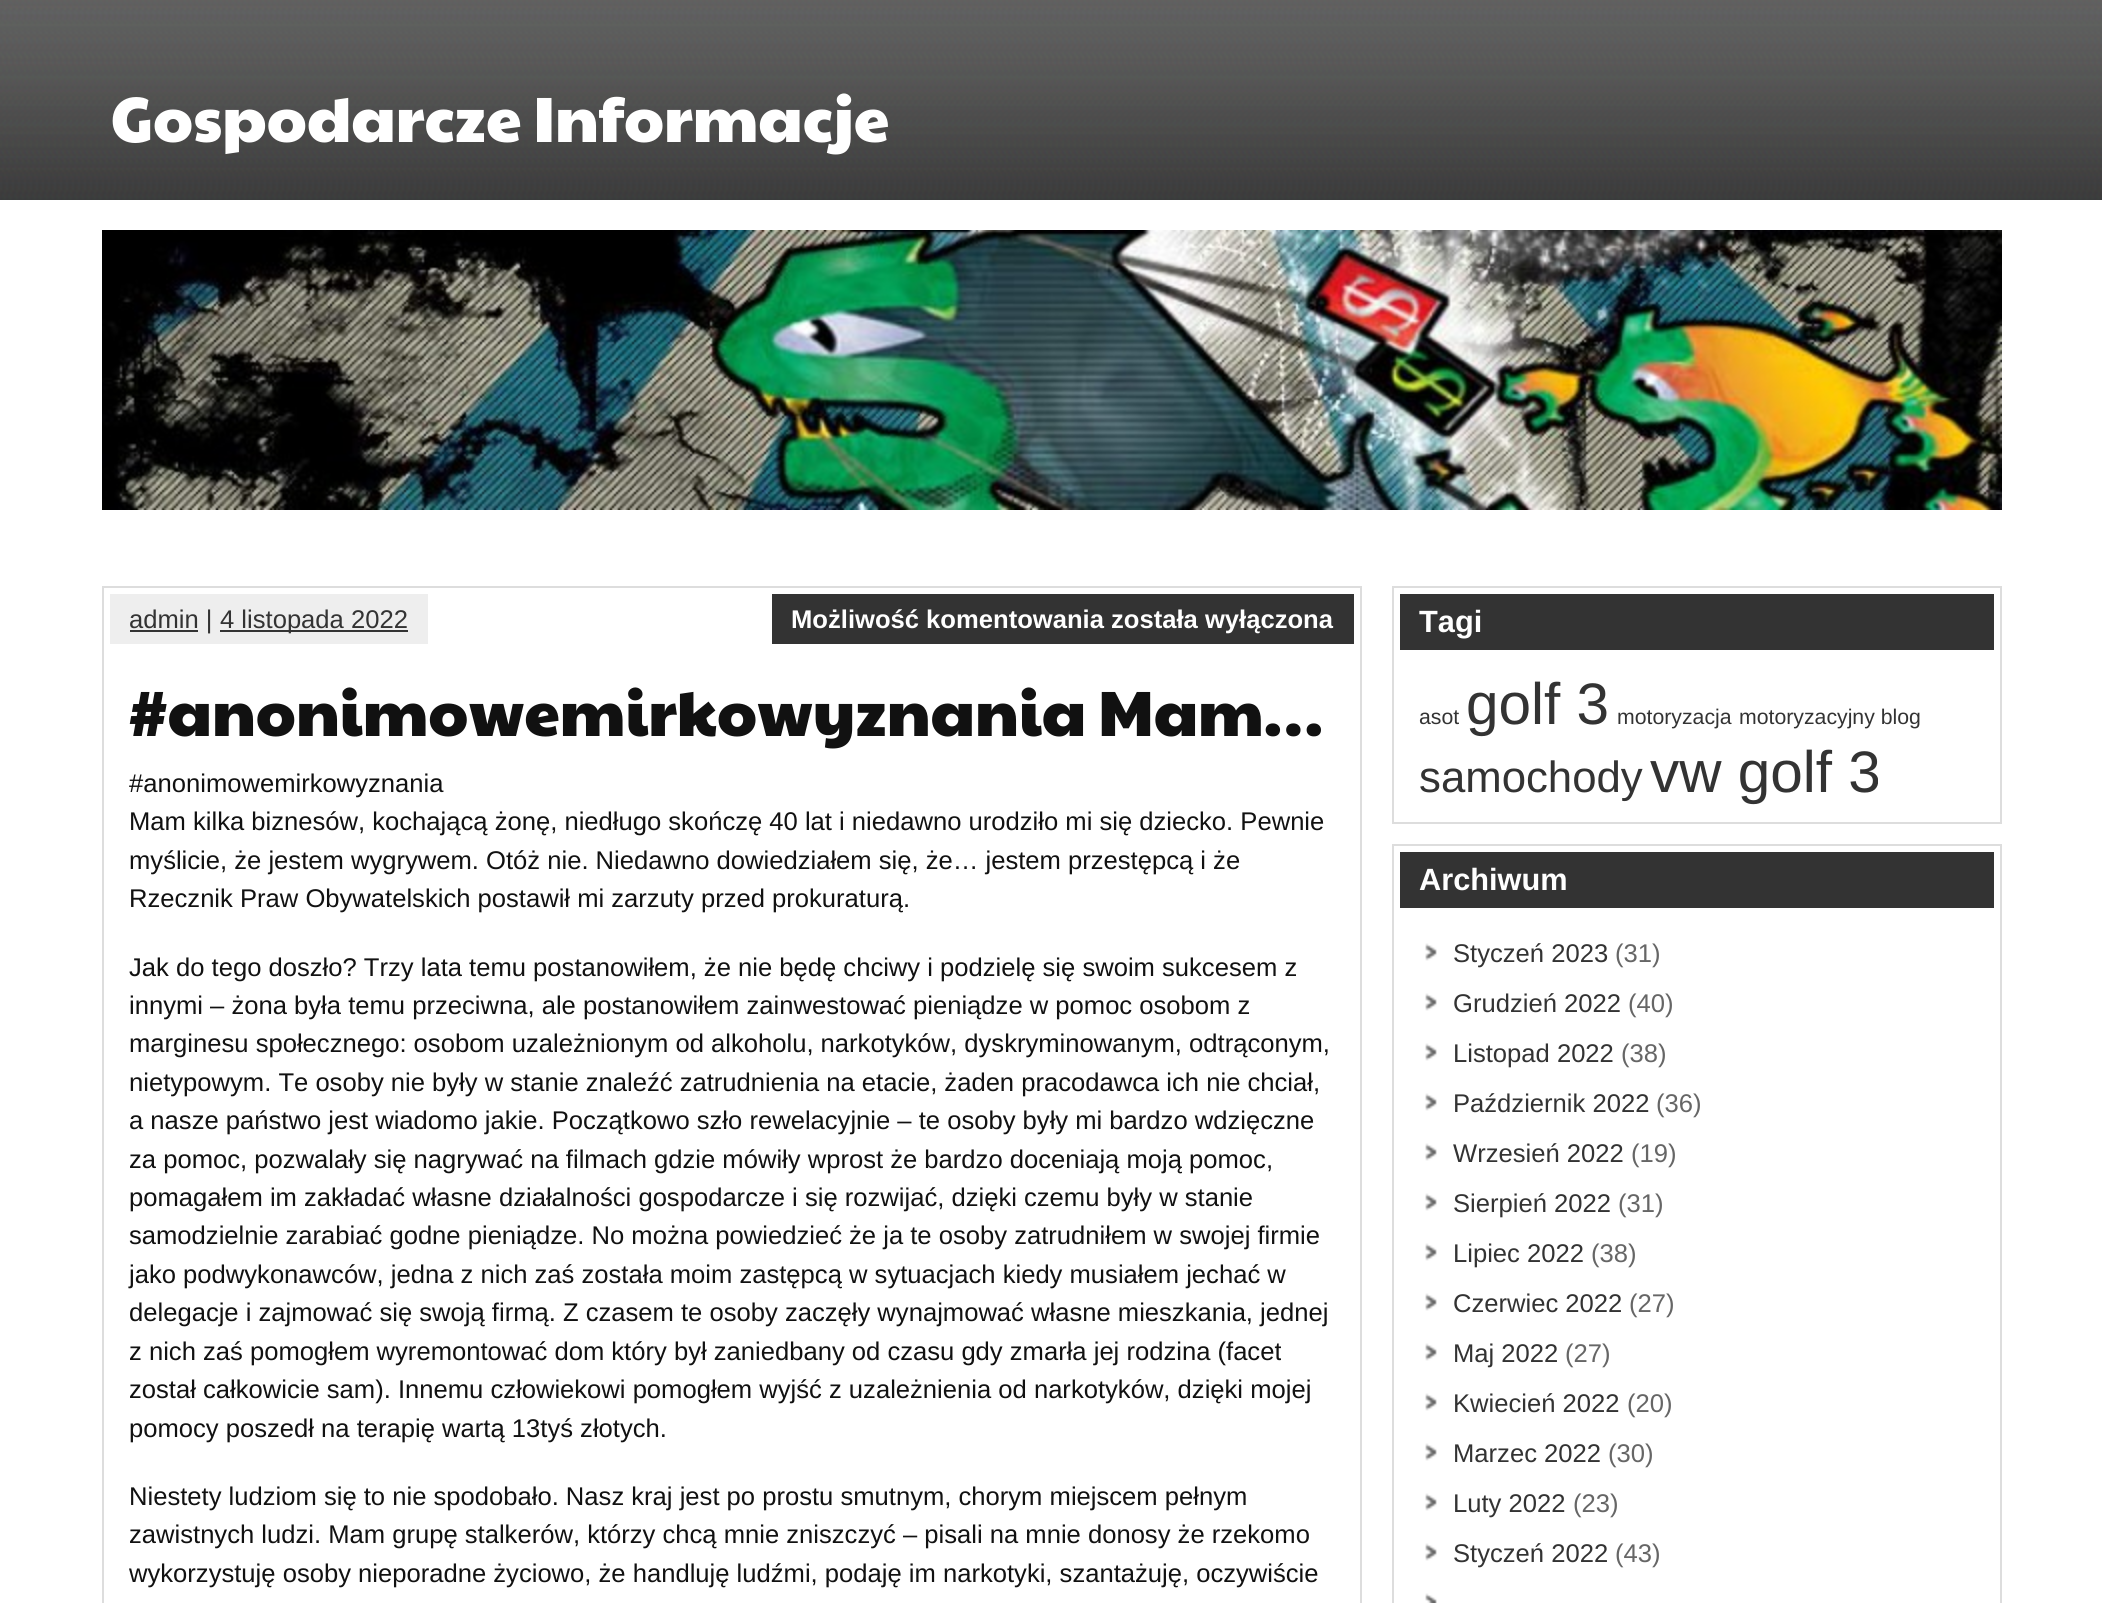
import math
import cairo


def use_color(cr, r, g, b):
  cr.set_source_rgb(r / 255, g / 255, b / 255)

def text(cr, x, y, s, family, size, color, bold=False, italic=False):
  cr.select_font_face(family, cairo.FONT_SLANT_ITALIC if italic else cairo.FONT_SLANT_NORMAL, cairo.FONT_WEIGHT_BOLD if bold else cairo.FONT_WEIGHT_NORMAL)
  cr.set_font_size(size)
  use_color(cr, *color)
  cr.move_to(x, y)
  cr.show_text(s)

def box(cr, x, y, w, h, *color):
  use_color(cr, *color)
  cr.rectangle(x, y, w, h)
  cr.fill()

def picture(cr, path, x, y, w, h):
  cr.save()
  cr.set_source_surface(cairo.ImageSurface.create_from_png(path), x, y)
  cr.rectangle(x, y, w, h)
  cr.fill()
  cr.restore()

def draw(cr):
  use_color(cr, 255, 255, 255)
  cr.paint()
  box(cr, 0, 0, 2102, 200, 51, 51, 51)
  picture(cr, "img_01.png", 0, 0, 2102, 200)
  picture(cr, "img_02.png", 102, 230, 1900, 280)
  cr.rectangle(103, 587, 1258, 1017)
  use_color(cr, 221, 221, 221)
  cr.stroke()
  box(cr, 110, 594, 318, 50, 238, 238, 238)
  box(cr, 130, 630, 68, 2, 51, 51, 51)
  box(cr, 220, 630, 188, 2, 51, 51, 51)
  box(cr, 772, 594, 582, 50, 51, 51, 51)
  cr.rectangle(1393, 587, 608, 236)
  use_color(cr, 221, 221, 221)
  cr.stroke()
  box(cr, 1400, 594, 594, 56, 51, 51, 51)
  cr.rectangle(1393, 845, 608, 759)
  use_color(cr, 221, 221, 221)
  cr.stroke()
  box(cr, 1400, 852, 594, 56, 51, 51, 51)
  picture(cr, "img_03.png", 1425, 943, 12, 18)
  picture(cr, "img_03.png", 1425, 993, 12, 18)
  picture(cr, "img_03.png", 1425, 1043, 12, 18)
  picture(cr, "img_03.png", 1425, 1093, 12, 18)
  picture(cr, "img_03.png", 1425, 1143, 12, 18)
  picture(cr, "img_03.png", 1425, 1193, 12, 18)
  picture(cr, "img_03.png", 1425, 1243, 12, 18)
  picture(cr, "img_03.png", 1425, 1293, 12, 18)
  picture(cr, "img_03.png", 1425, 1343, 12, 18)
  picture(cr, "img_03.png", 1425, 1393, 12, 18)
  picture(cr, "img_03.png", 1425, 1443, 12, 18)
  picture(cr, "img_03.png", 1425, 1493, 12, 18)
  picture(cr, "img_03.png", 1425, 1543, 12, 18)
  picture(cr, "img_04.png", 1425, 1593, 12, 10)
  text(cr, 111, 142, "Gospodarcze Informacje", "Paytone One", 64, (255, 255, 255))
  text(cr, 129, 628, "admin |", "Liberation Sans", 25.6, (51, 51, 51))
  text(cr, 220, 628, "4 listopada 2022", "Liberation Sans", 25.6, (51, 51, 51))
  text(cr, 791, 628, "Możliwość komentowania została wyłączona", "Liberation Sans", 25.6, (255, 255, 255), bold=True)
  text(cr, 129, 736, "#anonimowemirkowyznania Mam…", "Paytone One", 64, (17, 17, 17))
  text(cr, 129, 792, "#anonimowemirkowyznania", "Liberation Sans", 25.6, (17, 17, 17))
  text(cr, 129, 830, "Mam kilka biznesów, kochającą żonę, niedługo skończę 40 lat i niedawno urodziło mi się dziecko. Pewnie", "Liberation Sans", 25.6, (17, 17, 17))
  text(cr, 129, 869, "myślicie, że jestem wygrywem. Otóż nie. Niedawno dowiedziałem się, że… jestem przestępcą i że", "Liberation Sans", 25.6, (17, 17, 17))
  text(cr, 129, 907, "Rzecznik Praw Obywatelskich postawił mi zarzuty przed prokuraturą.", "Liberation Sans", 25.6, (17, 17, 17))
  text(cr, 129, 976, "Jak do tego doszło? Trzy lata temu postanowiłem, że nie będę chciwy i podzielę się swoim sukcesem z", "Liberation Sans", 25.6, (17, 17, 17))
  text(cr, 129, 1014, "innymi – żona była temu przeciwna, ale postanowiłem zainwestować pieniądze w pomoc osobom z", "Liberation Sans", 25.6, (17, 17, 17))
  text(cr, 129, 1052, "marginesu społecznego: osobom uzależnionym od alkoholu, narkotyków, dyskryminowanym, odtrąconym,", "Liberation Sans", 25.6, (17, 17, 17))
  text(cr, 129, 1091, "nietypowym. Te osoby nie były w stanie znaleźć zatrudnienia na etacie, żaden pracodawca ich nie chciał,", "Liberation Sans", 25.6, (17, 17, 17))
  text(cr, 129, 1129, "a nasze państwo jest wiadomo jakie. Początkowo szło rewelacyjnie – te osoby były mi bardzo wdzięczne", "Liberation Sans", 25.6, (17, 17, 17))
  text(cr, 129, 1168, "za pomoc, pozwalały się nagrywać na filmach gdzie mówiły wprost że bardzo doceniają moją pomoc,", "Liberation Sans", 25.6, (17, 17, 17))
  text(cr, 129, 1206, "pomagałem im zakładać własne działalności gospodarcze i się rozwijać, dzięki czemu były w stanie", "Liberation Sans", 25.6, (17, 17, 17))
  text(cr, 129, 1244, "samodzielnie zarabiać godne pieniądze. No można powiedzieć że ja te osoby zatrudniłem w swojej firmie", "Liberation Sans", 25.6, (17, 17, 17))
  text(cr, 129, 1283, "jako podwykonawców, jedna z nich zaś została moim zastępcą w sytuacjach kiedy musiałem jechać w", "Liberation Sans", 25.6, (17, 17, 17))
  text(cr, 129, 1321, "delegacje i zajmować się swoją firmą. Z czasem te osoby zaczęły wynajmować własne mieszkania, jednej", "Liberation Sans", 25.6, (17, 17, 17))
  text(cr, 129, 1360, "z nich zaś pomogłem wyremontować dom który był zaniedbany od czasu gdy zmarła jej rodzina (facet", "Liberation Sans", 25.6, (17, 17, 17))
  text(cr, 129, 1398, "został całkowicie sam). Innemu człowiekowi pomogłem wyjść z uzależnienia od narkotyków, dzięki mojej", "Liberation Sans", 25.6, (17, 17, 17))
  text(cr, 129, 1437, "pomocy poszedł na terapię wartą 13tyś złotych.", "Liberation Sans", 25.6, (17, 17, 17))
  text(cr, 129, 1505, "Niestety ludziom się to nie spodobało. Nasz kraj jest po prostu smutnym, chorym miejscem pełnym", "Liberation Sans", 25.6, (17, 17, 17))
  text(cr, 129, 1543, "zawistnych ludzi. Mam grupę stalkerów, którzy chcą mnie zniszczyć – pisali na mnie donosy że rzekomo", "Liberation Sans", 25.6, (17, 17, 17))
  text(cr, 129, 1582, "wykorzystuję osoby nieporadne życiowo, że handluję ludźmi, podaję im narkotyki, szantażuję, oczywiście", "Liberation Sans", 25.6, (17, 17, 17))
  text(cr, 1419, 632, "Tagi", "Liberation Sans", 30.75, (255, 255, 255), bold=True)
  text(cr, 1419, 724, "asot", "Liberation Sans", 21.25, (51, 51, 51))
  text(cr, 1466, 724, "golf 3", "Liberation Sans", 58.5, (51, 51, 51))
  text(cr, 1617, 724, "motoryzacja", "Liberation Sans", 21.25, (51, 51, 51))
  text(cr, 1739, 724, "motoryzacyjny blog", "Liberation Sans", 21.25, (51, 51, 51))
  text(cr, 1419, 792, "samochody", "Liberation Sans", 43.75, (51, 51, 51))
  text(cr, 1650, 792, "vw golf 3", "Liberation Sans", 58.5, (51, 51, 51))
  text(cr, 1419, 890, "Archiwum", "Liberation Sans", 30.75, (255, 255, 255), bold=True)
  text(cr, 1453, 962, "Styczeń 2023", "Liberation Sans", 25.6, (51, 51, 51))
  text(cr, 1615, 962, "(31)", "Liberation Sans", 25.6, (102, 102, 102))
  text(cr, 1453, 1012, "Grudzień 2022", "Liberation Sans", 25.6, (51, 51, 51))
  text(cr, 1628, 1012, "(40)", "Liberation Sans", 25.6, (102, 102, 102))
  text(cr, 1453, 1062, "Listopad 2022", "Liberation Sans", 25.6, (51, 51, 51))
  text(cr, 1621, 1062, "(38)", "Liberation Sans", 25.6, (102, 102, 102))
  text(cr, 1453, 1112, "Październik 2022", "Liberation Sans", 25.6, (51, 51, 51))
  text(cr, 1656, 1112, "(36)", "Liberation Sans", 25.6, (102, 102, 102))
  text(cr, 1453, 1162, "Wrzesień 2022", "Liberation Sans", 25.6, (51, 51, 51))
  text(cr, 1631, 1162, "(19)", "Liberation Sans", 25.6, (102, 102, 102))
  text(cr, 1453, 1212, "Sierpień 2022", "Liberation Sans", 25.6, (51, 51, 51))
  text(cr, 1618, 1212, "(31)", "Liberation Sans", 25.6, (102, 102, 102))
  text(cr, 1453, 1262, "Lipiec 2022", "Liberation Sans", 25.6, (51, 51, 51))
  text(cr, 1591, 1262, "(38)", "Liberation Sans", 25.6, (102, 102, 102))
  text(cr, 1453, 1312, "Czerwiec 2022", "Liberation Sans", 25.6, (51, 51, 51))
  text(cr, 1629, 1312, "(27)", "Liberation Sans", 25.6, (102, 102, 102))
  text(cr, 1453, 1362, "Maj 2022", "Liberation Sans", 25.6, (51, 51, 51))
  text(cr, 1565, 1362, "(27)", "Liberation Sans", 25.6, (102, 102, 102))
  text(cr, 1453, 1412, "Kwiecień 2022", "Liberation Sans", 25.6, (51, 51, 51))
  text(cr, 1627, 1412, "(20)", "Liberation Sans", 25.6, (102, 102, 102))
  text(cr, 1453, 1462, "Marzec 2022", "Liberation Sans", 25.6, (51, 51, 51))
  text(cr, 1608, 1462, "(30)", "Liberation Sans", 25.6, (102, 102, 102))
  text(cr, 1453, 1512, "Luty 2022", "Liberation Sans", 25.6, (51, 51, 51))
  text(cr, 1573, 1512, "(23)", "Liberation Sans", 25.6, (102, 102, 102))
  text(cr, 1453, 1562, "Styczeń 2022", "Liberation Sans", 25.6, (51, 51, 51))
  text(cr, 1615, 1562, "(43)", "Liberation Sans", 25.6, (102, 102, 102))


surface = cairo.ImageSurface(cairo.FORMAT_RGB24, 2102, 1603)
cr = cairo.Context(surface)
options = cairo.FontOptions()
options.set_hint_metrics(cairo.HINT_METRICS_OFF)
options.set_hint_style(cairo.HINT_STYLE_NONE)
cr.set_font_options(options)
cr.set_miter_limit(4)
draw(cr)
surface.write_to_png("out.png")
